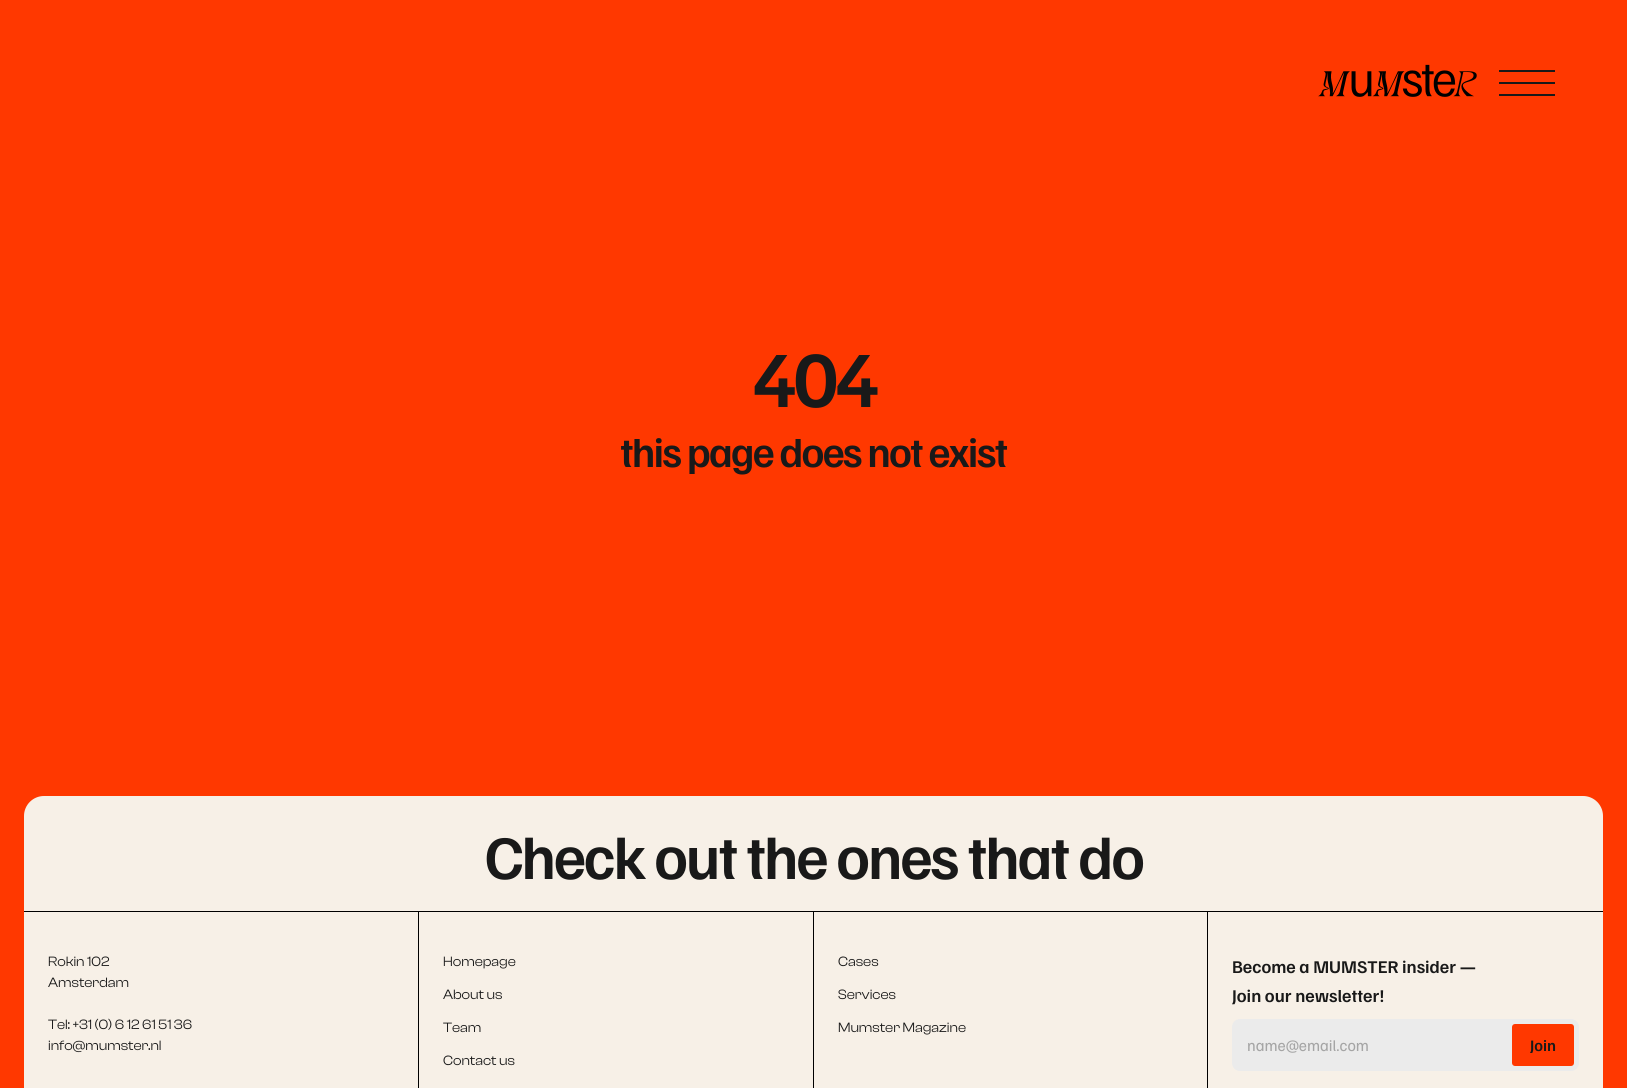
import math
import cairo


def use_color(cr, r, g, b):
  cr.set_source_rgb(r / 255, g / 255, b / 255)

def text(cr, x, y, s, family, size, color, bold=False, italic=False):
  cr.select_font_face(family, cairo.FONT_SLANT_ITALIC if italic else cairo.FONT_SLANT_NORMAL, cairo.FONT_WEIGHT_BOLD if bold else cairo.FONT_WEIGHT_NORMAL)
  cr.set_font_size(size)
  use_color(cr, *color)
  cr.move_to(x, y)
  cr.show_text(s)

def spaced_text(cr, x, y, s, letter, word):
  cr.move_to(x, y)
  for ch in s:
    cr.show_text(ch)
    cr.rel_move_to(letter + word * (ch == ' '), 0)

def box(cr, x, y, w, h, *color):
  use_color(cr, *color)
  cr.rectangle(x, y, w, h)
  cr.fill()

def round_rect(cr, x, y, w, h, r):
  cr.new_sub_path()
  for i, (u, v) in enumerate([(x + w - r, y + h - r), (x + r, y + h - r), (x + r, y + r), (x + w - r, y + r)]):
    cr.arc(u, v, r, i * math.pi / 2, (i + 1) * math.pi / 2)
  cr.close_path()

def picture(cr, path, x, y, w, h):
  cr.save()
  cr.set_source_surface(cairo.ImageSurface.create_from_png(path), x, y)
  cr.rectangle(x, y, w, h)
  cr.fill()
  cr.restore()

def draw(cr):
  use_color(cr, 255, 56, 0)
  cr.paint()
  picture(cr, "img_01.png", 1318, 64, 159, 33)
  box(cr, 1499, 70, 56, 2, 25, 25, 25)
  box(cr, 1499, 82, 56, 2, 25, 25, 25)
  box(cr, 1499, 94, 56, 2, 25, 25, 25)
  use_color(cr, 247, 240, 231)
  round_rect(cr, 24, 796, 1579, 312, 20)
  cr.fill()
  box(cr, 24, 911, 1579, 1, 0, 0, 0)
  box(cr, 418, 912, 1, 176, 0, 0, 0)
  box(cr, 813, 912, 1, 176, 0, 0, 0)
  box(cr, 1207, 912, 1, 176, 0, 0, 0)
  use_color(cr, 235, 235, 235)
  round_rect(cr, 1232, 1019, 347, 52, 8)
  cr.fill()
  use_color(cr, 255, 56, 0)
  round_rect(cr, 1512, 1024, 62, 42, 3)
  cr.fill()
  cr.select_font_face("Familjen Grotesk SemiBold")
  cr.set_font_size(80)
  use_color(cr, 25, 25, 25)
  spaced_text(cr, 752, 407, "404", -4, 0)
  cr.set_font_size(42)
  spaced_text(cr, 620, 467, "this page does not exist", -1.8, 0)
  cr.set_font_size(62)
  spaced_text(cr, 485, 879, "Check out the ones that do", -2.3, 0)
  text(cr, 48, 966, "Rokin 102", "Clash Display", 14, (25, 25, 25))
  text(cr, 48, 987, "Amsterdam", "Clash Display", 14, (25, 25, 25))
  text(cr, 48, 1029, "Tel: +31 (0) 6 12 61 51 36", "Clash Display", 14, (25, 25, 25))
  text(cr, 48, 1050, "info@mumster.nl", "Clash Display", 14, (25, 25, 25))
  text(cr, 443, 966, "Homepage", "Clash Display", 14, (25, 25, 25))
  text(cr, 443, 999, "About us", "Clash Display", 14, (25, 25, 25))
  text(cr, 443, 1032, "Team", "Clash Display", 14, (25, 25, 25))
  text(cr, 443, 1065, "Contact us", "Clash Display", 14, (25, 25, 25))
  text(cr, 838, 966, "Cases", "Clash Display", 14, (25, 25, 25))
  text(cr, 838, 999, "Services", "Clash Display", 14, (25, 25, 25))
  text(cr, 838, 1032, "Mumster Magazine", "Clash Display", 14, (25, 25, 25))
  text(cr, 1232, 973, "Become a MUMSTER insider —", "Familjen Grotesk SemiBold", 18, (25, 25, 25))
  text(cr, 1232, 1002, "Join our newsletter!", "Familjen Grotesk SemiBold", 18, (25, 25, 25))
  text(cr, 1247, 1051, "name@email.com", "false", 16, (165, 165, 165))
  text(cr, 1530, 1051, "Join", "Familjen Grotesk SemiBold", 16, (25, 25, 25))


surface = cairo.ImageSurface(cairo.FORMAT_RGB24, 1627, 1088)
cr = cairo.Context(surface)
options = cairo.FontOptions()
options.set_hint_metrics(cairo.HINT_METRICS_OFF)
options.set_hint_style(cairo.HINT_STYLE_NONE)
cr.set_font_options(options)
cr.set_miter_limit(4)
draw(cr)
surface.write_to_png("out.png")
